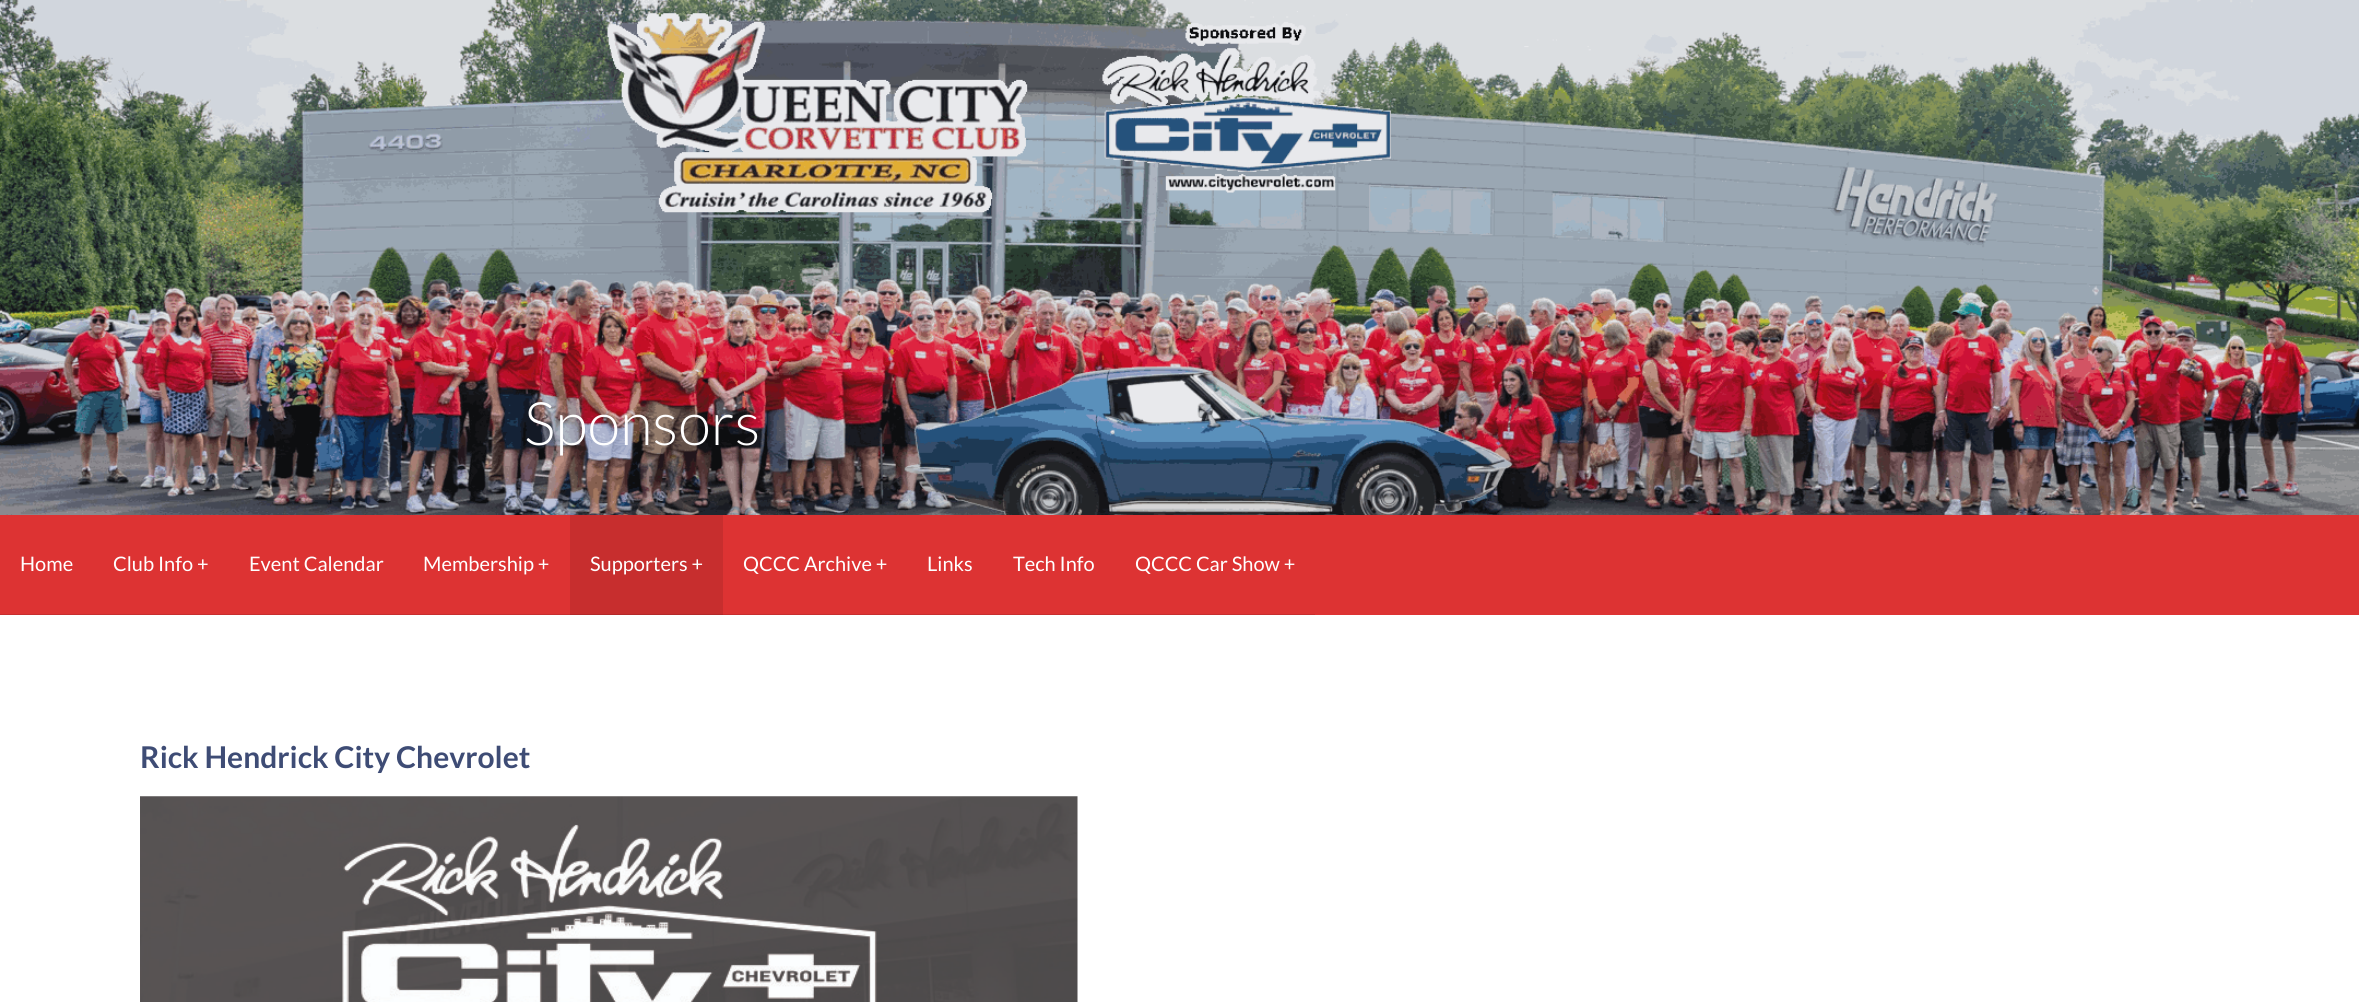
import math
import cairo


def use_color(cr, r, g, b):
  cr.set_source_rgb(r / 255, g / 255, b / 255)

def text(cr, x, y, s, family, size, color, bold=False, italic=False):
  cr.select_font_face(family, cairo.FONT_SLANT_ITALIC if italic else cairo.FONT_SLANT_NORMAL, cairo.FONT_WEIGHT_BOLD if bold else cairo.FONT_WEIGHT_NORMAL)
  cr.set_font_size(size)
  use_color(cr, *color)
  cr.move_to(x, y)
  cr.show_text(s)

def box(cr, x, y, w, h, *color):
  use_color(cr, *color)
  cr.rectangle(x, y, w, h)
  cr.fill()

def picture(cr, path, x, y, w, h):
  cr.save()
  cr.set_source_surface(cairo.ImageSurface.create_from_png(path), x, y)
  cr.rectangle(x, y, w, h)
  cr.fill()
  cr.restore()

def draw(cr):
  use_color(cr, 255, 255, 255)
  cr.paint()
  picture(cr, "img_01.png", 0, 0, 2359, 515)
  box(cr, 0, 515, 2359, 100, 221, 51, 51)
  box(cr, 0, 614, 570, 1, 199, 46, 46)
  box(cr, 570, 515, 153, 99, 199, 46, 46)
  box(cr, 570, 614, 153, 1, 179, 41, 41)
  box(cr, 723, 614, 592, 1, 199, 46, 46)
  picture(cr, "img_02.png", 140, 796, 938, 206)
  text(cr, 524, 445, "Sponsors", "Lato Light", 60, (255, 255, 255))
  text(cr, 20, 571, "Home", "Lato", 20, (255, 255, 255))
  text(cr, 113, 571, "Club Info +", "Lato", 20, (255, 255, 255))
  text(cr, 249, 571, "Event Calendar", "Lato", 20, (255, 255, 255))
  text(cr, 423, 571, "Membership +", "Lato", 20, (255, 255, 255))
  text(cr, 590, 571, "Supporters +", "Lato", 20, (255, 255, 255))
  text(cr, 743, 571, "QCCC Archive +", "Lato", 20, (255, 255, 255))
  text(cr, 927, 571, "Links", "Lato", 20, (255, 255, 255))
  text(cr, 1013, 571, "Tech Info", "Lato", 20, (255, 255, 255))
  text(cr, 1135, 571, "QCCC Car Show +", "Lato", 20, (255, 255, 255))
  text(cr, 140, 768, "Rick Hendrick City Chevrolet", "Lato", 30, (62, 76, 117), bold=True)


surface = cairo.ImageSurface(cairo.FORMAT_RGB24, 2359, 1002)
cr = cairo.Context(surface)
options = cairo.FontOptions()
options.set_hint_metrics(cairo.HINT_METRICS_OFF)
options.set_hint_style(cairo.HINT_STYLE_NONE)
cr.set_font_options(options)
cr.set_miter_limit(4)
draw(cr)
surface.write_to_png("out.png")
